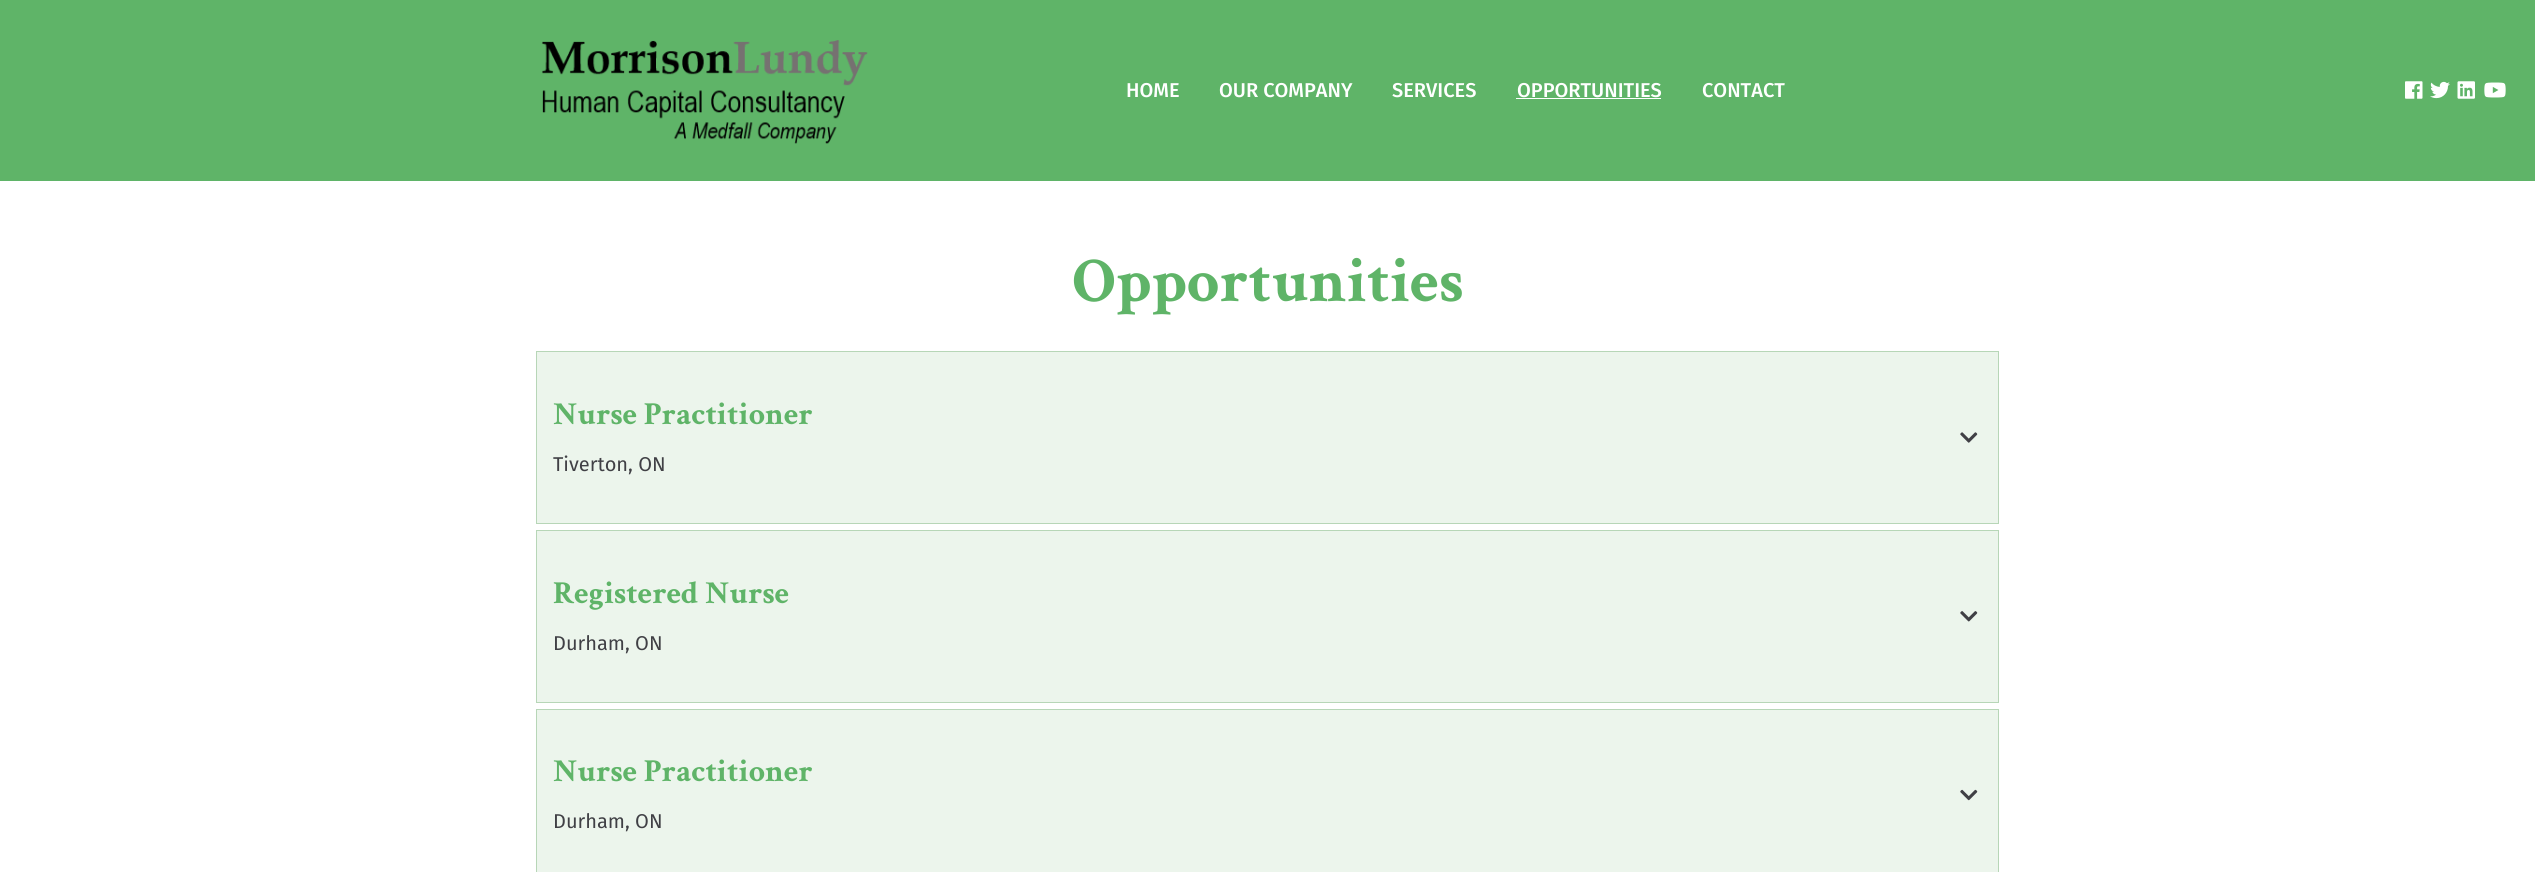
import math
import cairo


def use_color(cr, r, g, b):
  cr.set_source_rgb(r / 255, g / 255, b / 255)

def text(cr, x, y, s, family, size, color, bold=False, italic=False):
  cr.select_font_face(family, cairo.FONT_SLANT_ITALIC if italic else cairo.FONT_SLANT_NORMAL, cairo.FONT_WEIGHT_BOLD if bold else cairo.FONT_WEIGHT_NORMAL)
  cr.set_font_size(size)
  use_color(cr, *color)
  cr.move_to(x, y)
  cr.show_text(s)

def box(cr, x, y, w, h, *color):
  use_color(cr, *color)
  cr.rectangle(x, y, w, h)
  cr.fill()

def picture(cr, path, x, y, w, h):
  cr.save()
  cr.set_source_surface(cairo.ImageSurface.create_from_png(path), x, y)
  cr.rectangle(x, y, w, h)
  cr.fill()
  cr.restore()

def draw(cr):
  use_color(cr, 255, 255, 255)
  cr.paint()
  box(cr, 0, 0, 2535, 181, 95, 180, 104)
  picture(cr, "img_01.png", 541, 40, 327, 104)
  box(cr, 1516, 98, 145, 1, 255, 255, 255)
  picture(cr, "img_02.png", 2405, 81, 18, 18)
  picture(cr, "img_03.png", 2430, 81, 20, 18)
  picture(cr, "img_04.png", 2457, 81, 18, 18)
  picture(cr, "img_05.png", 2484, 82, 22, 16)
  use_color(cr, 236, 245, 236)
  cr.rectangle(536.5, 351.5, 1462, 172)
  cr.fill_preserve()
  use_color(cr, 183, 214, 183)
  cr.set_line_width(1)
  cr.stroke()
  picture(cr, "img_06.png", 1960, 432, 18, 11)
  use_color(cr, 236, 245, 236)
  cr.rectangle(536.5, 530.5, 1462, 172)
  cr.fill_preserve()
  use_color(cr, 183, 214, 183)
  cr.stroke()
  picture(cr, "img_07.png", 1960, 611, 18, 11)
  use_color(cr, 236, 245, 236)
  cr.rectangle(536.5, 709.5, 1462, 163)
  cr.fill_preserve()
  use_color(cr, 183, 214, 183)
  cr.stroke()
  picture(cr, "img_08.png", 1960, 789, 18, 12)
  text(cr, 1126, 97, "HOME", "Fira Sans Medium", 20, (255, 255, 255))
  text(cr, 1219, 97, "OUR COMPANY", "Fira Sans Medium", 20, (255, 255, 255))
  text(cr, 1392, 97, "SERVICES", "Fira Sans Medium", 20, (255, 255, 255))
  text(cr, 1517, 97, "OPPORTUNITIES", "Fira Sans Medium", 20, (255, 255, 255))
  text(cr, 1702, 97, "CONTACT", "Fira Sans Medium", 20, (255, 255, 255))
  text(cr, 1072, 301, "Opportunities", "Crimson Text", 64, (95, 180, 104), bold=True)
  text(cr, 553, 424, "Nurse Practitioner", "Crimson Text", 32, (95, 180, 104), bold=True)
  text(cr, 553, 471, "Tiverton, ON", "Fira Sans", 20, (64, 64, 69))
  text(cr, 553, 603, "Registered Nurse", "Crimson Text", 32, (95, 180, 104), bold=True)
  text(cr, 553, 650, "Durham, ON", "Fira Sans", 20, (64, 64, 69))
  text(cr, 553, 781, "Nurse Practitioner", "Crimson Text", 32, (95, 180, 104), bold=True)
  text(cr, 553, 828, "Durham, ON", "Fira Sans", 20, (64, 64, 69))


surface = cairo.ImageSurface(cairo.FORMAT_RGB24, 2535, 872)
cr = cairo.Context(surface)
options = cairo.FontOptions()
options.set_hint_metrics(cairo.HINT_METRICS_OFF)
options.set_hint_style(cairo.HINT_STYLE_NONE)
cr.set_font_options(options)
cr.set_miter_limit(4)
draw(cr)
surface.write_to_png("out.png")
